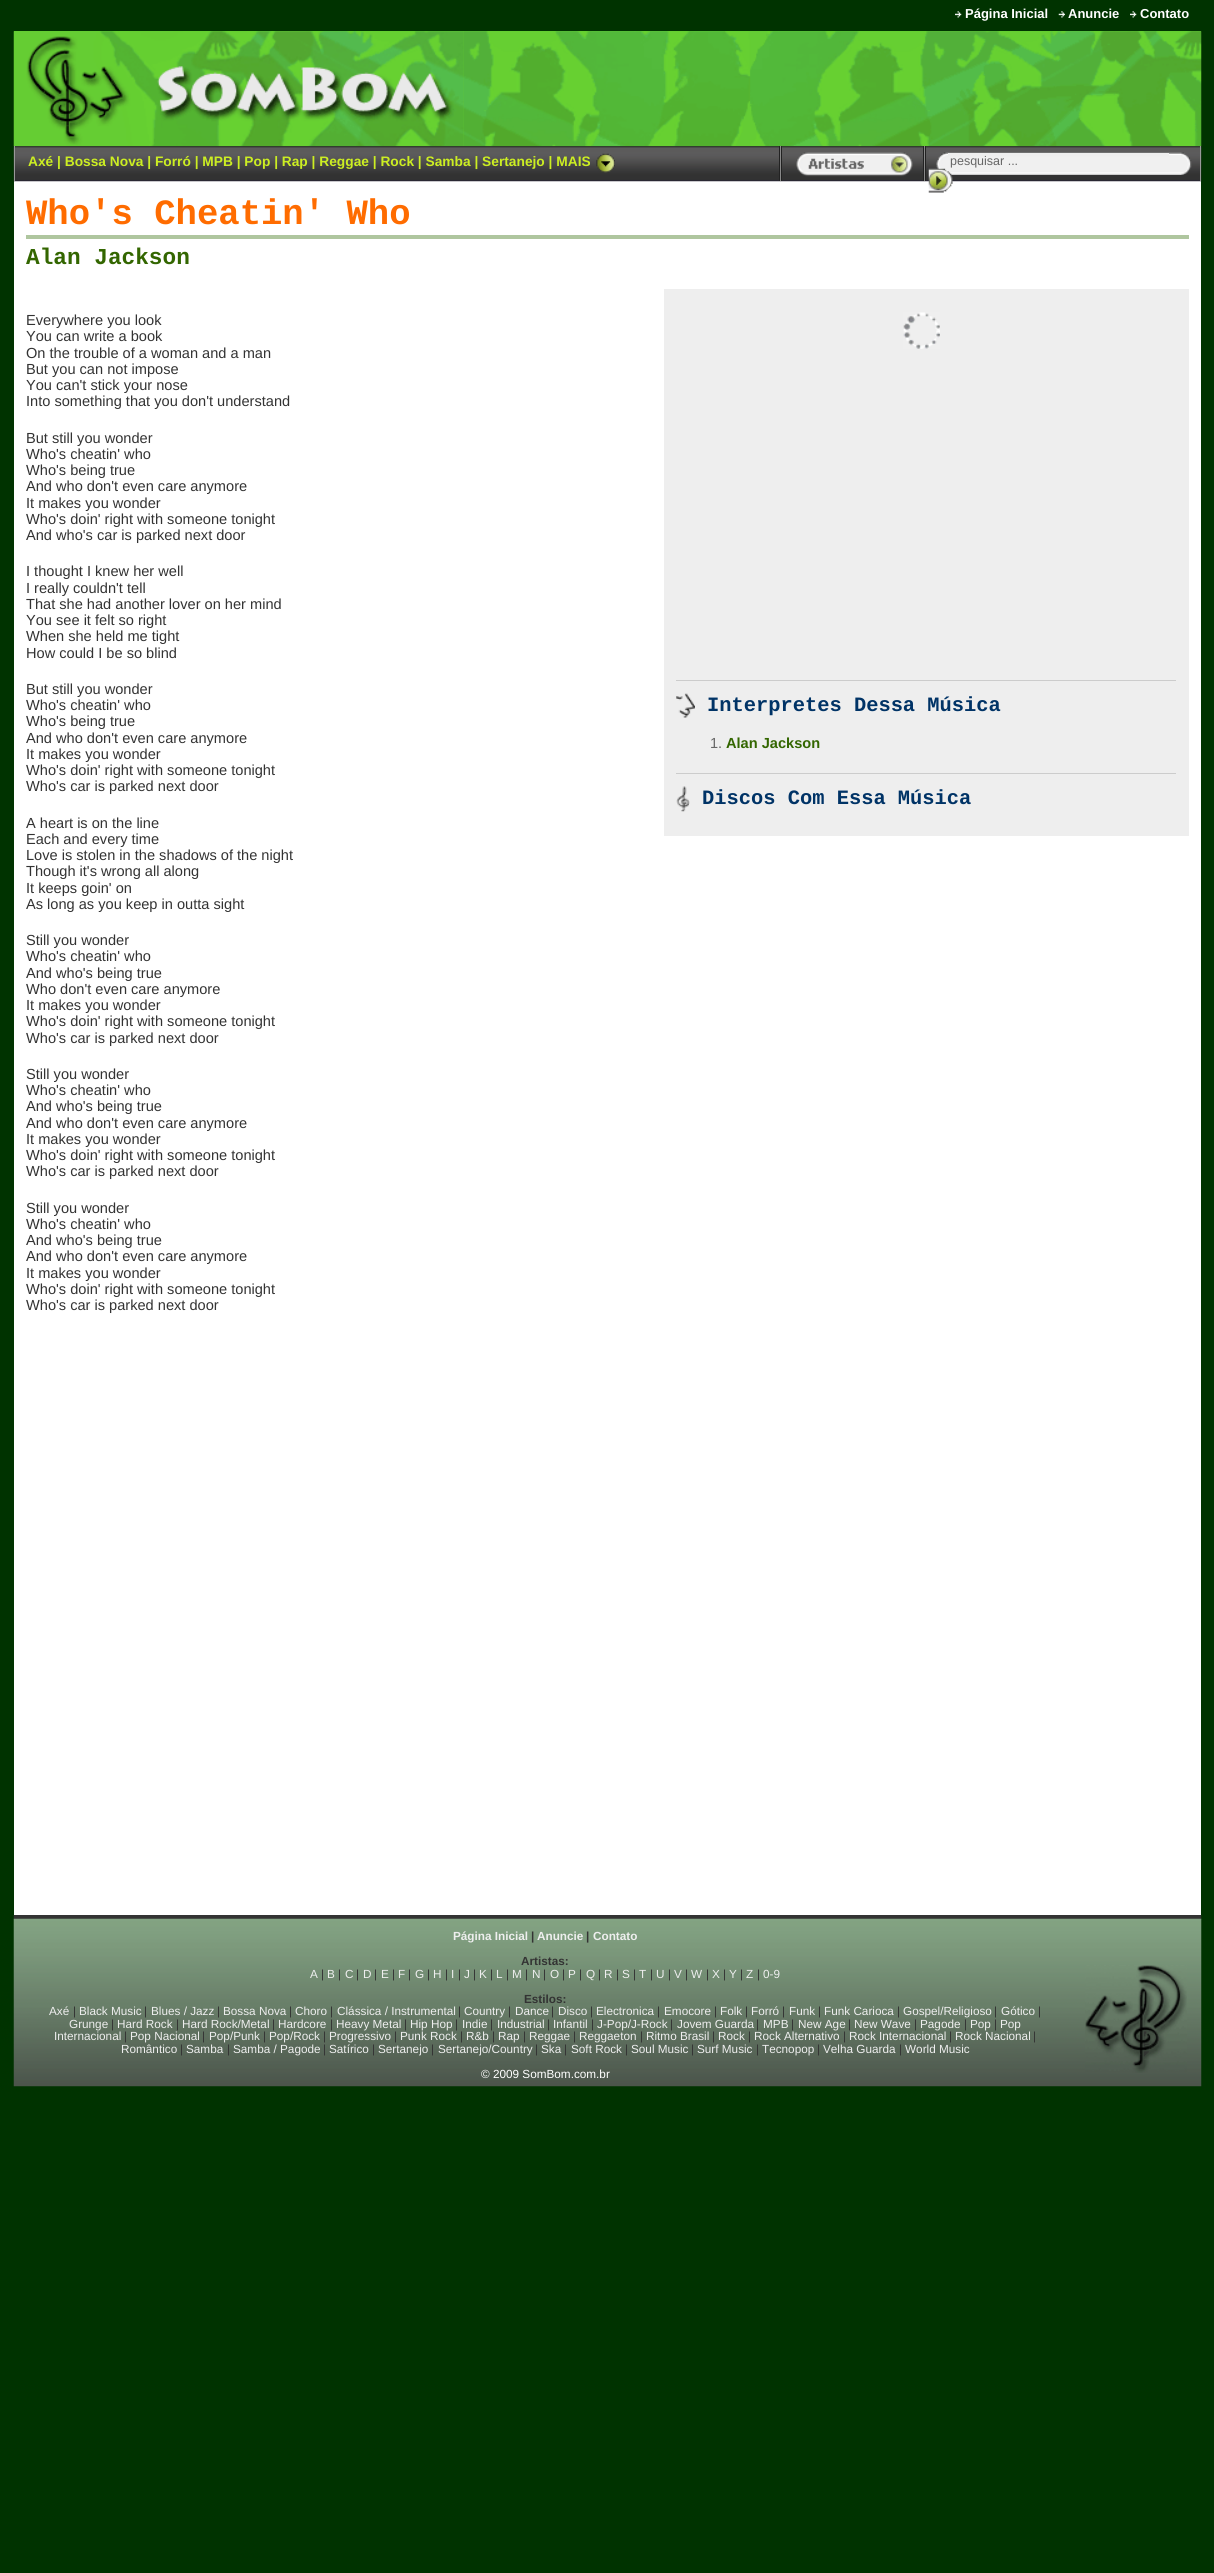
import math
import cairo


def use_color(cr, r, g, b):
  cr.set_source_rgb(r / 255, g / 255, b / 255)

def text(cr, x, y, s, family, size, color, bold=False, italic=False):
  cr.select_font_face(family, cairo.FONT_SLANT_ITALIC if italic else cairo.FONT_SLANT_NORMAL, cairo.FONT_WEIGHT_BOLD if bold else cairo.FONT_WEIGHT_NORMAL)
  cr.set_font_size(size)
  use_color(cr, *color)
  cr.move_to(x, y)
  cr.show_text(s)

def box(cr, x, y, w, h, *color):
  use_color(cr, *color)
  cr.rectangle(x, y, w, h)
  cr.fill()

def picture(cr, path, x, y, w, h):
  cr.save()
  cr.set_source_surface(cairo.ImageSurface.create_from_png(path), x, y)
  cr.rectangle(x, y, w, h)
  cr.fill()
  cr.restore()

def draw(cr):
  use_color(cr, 0, 51, 0)
  cr.paint()
  picture(cr, "img_01.png", 955, 11, 7, 7)
  picture(cr, "img_02.png", 1058, 11, 7, 7)
  picture(cr, "img_01.png", 1130, 11, 7, 7)
  box(cr, 14, 31, 1187, 115, 102, 204, 51)
  picture(cr, "img_03.png", 13, 31, 451, 116)
  picture(cr, "img_04.png", 463, 31, 739, 116)
  box(cr, 14, 181, 1187, 1734, 255, 255, 255)
  picture(cr, "img_05.png", 13, 146, 1189, 36)
  box(cr, 1200, 146, 1, 35, 153, 153, 153)
  box(cr, 14, 146, 1, 35, 153, 153, 153)
  picture(cr, "img_06.png", 596, 153, 19, 20)
  box(cr, 779, 146, 3, 35, 34, 34, 34)
  box(cr, 780, 146, 1, 35, 136, 136, 136)
  picture(cr, "img_07.png", 796, 152, 117, 25)
  box(cr, 923, 146, 3, 35, 34, 34, 34)
  box(cr, 924, 146, 1, 35, 136, 136, 136)
  picture(cr, "img_08.png", 936, 152, 256, 23)
  box(cr, 948, 153, 221, 3, 238, 238, 238)
  picture(cr, "img_09.png", 928, 168, 25, 25)
  box(cr, 26, 235, 1163, 4, 175, 198, 159)
  box(cr, 664, 289, 525, 547, 238, 238, 238)
  picture(cr, "img_10.png", 903, 312, 37, 37)
  box(cr, 676, 680, 500, 1, 204, 204, 204)
  picture(cr, "img_11.png", 676, 693, 19, 25)
  box(cr, 676, 773, 500, 1, 204, 204, 204)
  picture(cr, "img_12.png", 676, 786, 14, 26)
  picture(cr, "img_13.png", 13, 1915, 1189, 172)
  picture(cr, "img_14.png", 1085, 1965, 102, 108)
  text(cr, 965, 18, "Página Inicial", "Liberation Sans", 13, (255, 255, 255), bold=True)
  text(cr, 1068, 18, "Anuncie", "Liberation Sans", 13, (255, 255, 255), bold=True)
  text(cr, 1140, 18, "Contato", "Liberation Sans", 13, (255, 255, 255), bold=True)
  text(cr, 28, 166, "Axé | Bossa Nova | Forró | MPB | Pop | Rap | Reggae | Rock | Samba | Sertanejo | MAIS", "Liberation Sans", 13.75, (204, 238, 34), bold=True)
  text(cr, 950, 165, "pesquisar ...", "Liberation Sans", 12.5, (102, 102, 102))
  text(cr, 26, 224, "Who's Cheatin' Who", "Liberation Mono", 35.6, (255, 108, 0), bold=True)
  text(cr, 26, 264, "Alan Jackson", "Liberation Mono", 22.75, (51, 102, 0), bold=True)
  text(cr, 26, 325, "Everywhere you look", "Liberation Sans", 14.6, (51, 51, 51))
  text(cr, 26, 341, "You can write a book", "Liberation Sans", 14.6, (51, 51, 51))
  text(cr, 26, 358, "On the trouble of a woman and a man", "Liberation Sans", 14.6, (51, 51, 51))
  text(cr, 26, 374, "But you can not impose", "Liberation Sans", 14.6, (51, 51, 51))
  text(cr, 26, 390, "You can't stick your nose", "Liberation Sans", 14.6, (51, 51, 51))
  text(cr, 26, 406, "Into something that you don't understand", "Liberation Sans", 14.6, (51, 51, 51))
  text(cr, 26, 443, "But still you wonder", "Liberation Sans", 14.6, (51, 51, 51))
  text(cr, 26, 459, "Who's cheatin' who", "Liberation Sans", 14.6, (51, 51, 51))
  text(cr, 26, 475, "Who's being true", "Liberation Sans", 14.6, (51, 51, 51))
  text(cr, 26, 491, "And who don't even care anymore", "Liberation Sans", 14.6, (51, 51, 51))
  text(cr, 26, 508, "It makes you wonder", "Liberation Sans", 14.6, (51, 51, 51))
  text(cr, 26, 524, "Who's doin' right with someone tonight", "Liberation Sans", 14.6, (51, 51, 51))
  text(cr, 26, 540, "And who's car is parked next door", "Liberation Sans", 14.6, (51, 51, 51))
  text(cr, 26, 576, "I thought I knew her well", "Liberation Sans", 14.6, (51, 51, 51))
  text(cr, 26, 593, "I really couldn't tell", "Liberation Sans", 14.6, (51, 51, 51))
  text(cr, 26, 609, "That she had another lover on her mind", "Liberation Sans", 14.6, (51, 51, 51))
  text(cr, 26, 625, "You see it felt so right", "Liberation Sans", 14.6, (51, 51, 51))
  text(cr, 26, 641, "When she held me tight", "Liberation Sans", 14.6, (51, 51, 51))
  text(cr, 26, 658, "How could I be so blind", "Liberation Sans", 14.6, (51, 51, 51))
  text(cr, 26, 694, "But still you wonder", "Liberation Sans", 14.6, (51, 51, 51))
  text(cr, 26, 710, "Who's cheatin' who", "Liberation Sans", 14.6, (51, 51, 51))
  text(cr, 26, 726, "Who's being true", "Liberation Sans", 14.6, (51, 51, 51))
  text(cr, 26, 743, "And who don't even care anymore", "Liberation Sans", 14.6, (51, 51, 51))
  text(cr, 26, 759, "It makes you wonder", "Liberation Sans", 14.6, (51, 51, 51))
  text(cr, 26, 775, "Who's doin' right with someone tonight", "Liberation Sans", 14.6, (51, 51, 51))
  text(cr, 26, 791, "Who's car is parked next door", "Liberation Sans", 14.6, (51, 51, 51))
  text(cr, 26, 828, "A heart is on the line", "Liberation Sans", 14.6, (51, 51, 51))
  text(cr, 26, 844, "Each and every time", "Liberation Sans", 14.6, (51, 51, 51))
  text(cr, 26, 860, "Love is stolen in the shadows of the night", "Liberation Sans", 14.6, (51, 51, 51))
  text(cr, 26, 876, "Though it's wrong all along", "Liberation Sans", 14.6, (51, 51, 51))
  text(cr, 26, 893, "It keeps goin' on", "Liberation Sans", 14.6, (51, 51, 51))
  text(cr, 26, 909, "As long as you keep in outta sight", "Liberation Sans", 14.6, (51, 51, 51))
  text(cr, 26, 945, "Still you wonder", "Liberation Sans", 14.6, (51, 51, 51))
  text(cr, 26, 961, "Who's cheatin' who", "Liberation Sans", 14.6, (51, 51, 51))
  text(cr, 26, 978, "And who's being true", "Liberation Sans", 14.6, (51, 51, 51))
  text(cr, 26, 994, "Who don't even care anymore", "Liberation Sans", 14.6, (51, 51, 51))
  text(cr, 26, 1010, "It makes you wonder", "Liberation Sans", 14.6, (51, 51, 51))
  text(cr, 26, 1026, "Who's doin' right with someone tonight", "Liberation Sans", 14.6, (51, 51, 51))
  text(cr, 26, 1043, "Who's car is parked next door", "Liberation Sans", 14.6, (51, 51, 51))
  text(cr, 26, 1079, "Still you wonder", "Liberation Sans", 14.6, (51, 51, 51))
  text(cr, 26, 1095, "Who's cheatin' who", "Liberation Sans", 14.6, (51, 51, 51))
  text(cr, 26, 1111, "And who's being true", "Liberation Sans", 14.6, (51, 51, 51))
  text(cr, 26, 1128, "And who don't even care anymore", "Liberation Sans", 14.6, (51, 51, 51))
  text(cr, 26, 1144, "It makes you wonder", "Liberation Sans", 14.6, (51, 51, 51))
  text(cr, 26, 1160, "Who's doin' right with someone tonight", "Liberation Sans", 14.6, (51, 51, 51))
  text(cr, 26, 1176, "Who's car is parked next door", "Liberation Sans", 14.6, (51, 51, 51))
  text(cr, 26, 1213, "Still you wonder", "Liberation Sans", 14.6, (51, 51, 51))
  text(cr, 26, 1229, "Who's cheatin' who", "Liberation Sans", 14.6, (51, 51, 51))
  text(cr, 26, 1245, "And who's being true", "Liberation Sans", 14.6, (51, 51, 51))
  text(cr, 26, 1261, "And who don't even care anymore", "Liberation Sans", 14.6, (51, 51, 51))
  text(cr, 26, 1278, "It makes you wonder", "Liberation Sans", 14.6, (51, 51, 51))
  text(cr, 26, 1294, "Who's doin' right with someone tonight", "Liberation Sans", 14.6, (51, 51, 51))
  text(cr, 26, 1310, "Who's car is parked next door", "Liberation Sans", 14.6, (51, 51, 51))
  text(cr, 707, 711, "Interpretes Dessa Música", "Liberation Mono", 20.4, (0, 51, 102), bold=True)
  text(cr, 710, 748, "1.", "Liberation Sans", 14.6, (102, 102, 102))
  text(cr, 726, 748, "Alan Jackson", "Liberation Sans", 14.6, (51, 102, 0), bold=True)
  text(cr, 702, 804, "Discos Com Essa Música", "Liberation Mono", 20.4, (0, 51, 102), bold=True)
  text(cr, 453, 1940, "Página Inicial", "Liberation Sans", 11.75, (238, 238, 238), bold=True)
  text(cr, 531, 1940, "|", "Liberation Sans", 11.75, (51, 51, 51), bold=True)
  text(cr, 537, 1940, "Anuncie", "Liberation Sans", 11.75, (238, 238, 238), bold=True)
  text(cr, 586, 1940, "|", "Liberation Sans", 11.75, (51, 51, 51), bold=True)
  text(cr, 593, 1940, "Contato", "Liberation Sans", 11.75, (238, 238, 238), bold=True)
  text(cr, 521, 1965, "Artistas:", "Liberation Sans", 11.75, (51, 51, 51), bold=True)
  text(cr, 310, 1978, "A", "Liberation Sans", 11.75, (238, 238, 238))
  text(cr, 321, 1978, "|", "Liberation Sans", 11.75, (51, 51, 51))
  text(cr, 327, 1978, "B", "Liberation Sans", 11.75, (238, 238, 238))
  text(cr, 338, 1978, "|", "Liberation Sans", 11.75, (51, 51, 51))
  text(cr, 345, 1978, "C", "Liberation Sans", 11.75, (238, 238, 238))
  text(cr, 356, 1978, "|", "Liberation Sans", 11.75, (51, 51, 51))
  text(cr, 363, 1978, "D", "Liberation Sans", 11.75, (238, 238, 238))
  text(cr, 374, 1978, "|", "Liberation Sans", 11.75, (51, 51, 51))
  text(cr, 381, 1978, "E", "Liberation Sans", 11.75, (238, 238, 238))
  text(cr, 392, 1978, "|", "Liberation Sans", 11.75, (51, 51, 51))
  text(cr, 398, 1978, "F", "Liberation Sans", 11.75, (238, 238, 238))
  text(cr, 408, 1978, "|", "Liberation Sans", 11.75, (51, 51, 51))
  text(cr, 415, 1978, "G", "Liberation Sans", 11.75, (238, 238, 238))
  text(cr, 427, 1978, "|", "Liberation Sans", 11.75, (51, 51, 51))
  text(cr, 433, 1978, "H", "Liberation Sans", 11.75, (238, 238, 238))
  text(cr, 445, 1978, "|", "Liberation Sans", 11.75, (51, 51, 51))
  text(cr, 451, 1978, "I", "Liberation Sans", 11.75, (238, 238, 238))
  text(cr, 458, 1978, "|", "Liberation Sans", 11.75, (51, 51, 51))
  text(cr, 464, 1978, "J", "Liberation Sans", 11.75, (238, 238, 238))
  text(cr, 473, 1978, "|", "Liberation Sans", 11.75, (51, 51, 51))
  text(cr, 479, 1978, "K", "Liberation Sans", 11.75, (238, 238, 238))
  text(cr, 490, 1978, "|", "Liberation Sans", 11.75, (51, 51, 51))
  text(cr, 496, 1978, "L", "Liberation Sans", 11.75, (238, 238, 238))
  text(cr, 506, 1978, "|", "Liberation Sans", 11.75, (51, 51, 51))
  text(cr, 512, 1978, "M", "Liberation Sans", 11.75, (238, 238, 238))
  text(cr, 525, 1978, "|", "Liberation Sans", 11.75, (51, 51, 51))
  text(cr, 532, 1978, "N", "Liberation Sans", 11.75, (238, 238, 238))
  text(cr, 543, 1978, "|", "Liberation Sans", 11.75, (51, 51, 51))
  text(cr, 550, 1978, "O", "Liberation Sans", 11.75, (238, 238, 238))
  text(cr, 562, 1978, "|", "Liberation Sans", 11.75, (51, 51, 51))
  text(cr, 568, 1978, "P", "Liberation Sans", 11.75, (238, 238, 238))
  text(cr, 579, 1978, "|", "Liberation Sans", 11.75, (51, 51, 51))
  text(cr, 586, 1978, "Q", "Liberation Sans", 11.75, (238, 238, 238))
  text(cr, 598, 1978, "|", "Liberation Sans", 11.75, (51, 51, 51))
  text(cr, 604, 1978, "R", "Liberation Sans", 11.75, (238, 238, 238))
  text(cr, 616, 1978, "|", "Liberation Sans", 11.75, (51, 51, 51))
  text(cr, 622, 1978, "S", "Liberation Sans", 11.75, (238, 238, 238))
  text(cr, 633, 1978, "|", "Liberation Sans", 11.75, (51, 51, 51))
  text(cr, 639, 1978, "T", "Liberation Sans", 11.75, (238, 238, 238))
  text(cr, 650, 1978, "|", "Liberation Sans", 11.75, (51, 51, 51))
  text(cr, 656, 1978, "U", "Liberation Sans", 11.75, (238, 238, 238))
  text(cr, 668, 1978, "|", "Liberation Sans", 11.75, (51, 51, 51))
  text(cr, 674, 1978, "V", "Liberation Sans", 11.75, (238, 238, 238))
  text(cr, 685, 1978, "|", "Liberation Sans", 11.75, (51, 51, 51))
  text(cr, 691, 1978, "W", "Liberation Sans", 11.75, (238, 238, 238))
  text(cr, 706, 1978, "|", "Liberation Sans", 11.75, (51, 51, 51))
  text(cr, 712, 1978, "X", "Liberation Sans", 11.75, (238, 238, 238))
  text(cr, 723, 1978, "|", "Liberation Sans", 11.75, (51, 51, 51))
  text(cr, 729, 1978, "Y", "Liberation Sans", 11.75, (238, 238, 238))
  text(cr, 740, 1978, "|", "Liberation Sans", 11.75, (51, 51, 51))
  text(cr, 746, 1978, "Z", "Liberation Sans", 11.75, (238, 238, 238))
  text(cr, 757, 1978, "|", "Liberation Sans", 11.75, (51, 51, 51))
  text(cr, 763, 1978, "0-9", "Liberation Sans", 11.75, (238, 238, 238))
  text(cr, 524, 2003, "Estilos:", "Liberation Sans", 11.75, (51, 51, 51), bold=True)
  text(cr, 49, 2015, "Axé", "Liberation Sans", 11.75, (238, 238, 238))
  text(cr, 73, 2015, "|", "Liberation Sans", 11.75, (51, 51, 51))
  text(cr, 79, 2015, "Black Music", "Liberation Sans", 11.75, (238, 238, 238))
  text(cr, 144, 2015, "|", "Liberation Sans", 11.75, (51, 51, 51))
  text(cr, 151, 2015, "Blues / Jazz", "Liberation Sans", 11.75, (238, 238, 238))
  text(cr, 217, 2015, "|", "Liberation Sans", 11.75, (51, 51, 51))
  text(cr, 223, 2015, "Bossa Nova", "Liberation Sans", 11.75, (238, 238, 238))
  text(cr, 289, 2015, "|", "Liberation Sans", 11.75, (51, 51, 51))
  text(cr, 295, 2015, "Choro", "Liberation Sans", 11.75, (238, 238, 238))
  text(cr, 330, 2015, "|", "Liberation Sans", 11.75, (51, 51, 51))
  text(cr, 337, 2015, "Clássica / Instrumental", "Liberation Sans", 11.75, (238, 238, 238))
  text(cr, 458, 2015, "|", "Liberation Sans", 11.75, (51, 51, 51))
  text(cr, 464, 2015, "Country", "Liberation Sans", 11.75, (238, 238, 238))
  text(cr, 508, 2015, "|", "Liberation Sans", 11.75, (51, 51, 51))
  text(cr, 515, 2015, "Dance", "Liberation Sans", 11.75, (238, 238, 238))
  text(cr, 551, 2015, "|", "Liberation Sans", 11.75, (51, 51, 51))
  text(cr, 558, 2015, "Disco", "Liberation Sans", 11.75, (238, 238, 238))
  text(cr, 590, 2015, "|", "Liberation Sans", 11.75, (51, 51, 51))
  text(cr, 596, 2015, "Electronica", "Liberation Sans", 11.75, (238, 238, 238))
  text(cr, 657, 2015, "|", "Liberation Sans", 11.75, (51, 51, 51))
  text(cr, 664, 2015, "Emocore", "Liberation Sans", 11.75, (238, 238, 238))
  text(cr, 714, 2015, "|", "Liberation Sans", 11.75, (51, 51, 51))
  text(cr, 720, 2015, "Folk", "Liberation Sans", 11.75, (238, 238, 238))
  text(cr, 745, 2015, "|", "Liberation Sans", 11.75, (51, 51, 51))
  text(cr, 751, 2015, "Forró", "Liberation Sans", 11.75, (238, 238, 238))
  text(cr, 782, 2015, "|", "Liberation Sans", 11.75, (51, 51, 51))
  text(cr, 789, 2015, "Funk", "Liberation Sans", 11.75, (238, 238, 238))
  text(cr, 818, 2015, "|", "Liberation Sans", 11.75, (51, 51, 51))
  text(cr, 824, 2015, "Funk Carioca", "Liberation Sans", 11.75, (238, 238, 238))
  text(cr, 897, 2015, "|", "Liberation Sans", 11.75, (51, 51, 51))
  text(cr, 903, 2015, "Gospel/Religioso", "Liberation Sans", 11.75, (238, 238, 238))
  text(cr, 994, 2015, "|", "Liberation Sans", 11.75, (51, 51, 51))
  text(cr, 1001, 2015, "Gótico", "Liberation Sans", 11.75, (238, 238, 238))
  text(cr, 1038, 2015, "|", "Liberation Sans", 11.75, (51, 51, 51))
  text(cr, 69, 2028, "Grunge", "Liberation Sans", 11.75, (238, 238, 238))
  text(cr, 111, 2028, "|", "Liberation Sans", 11.75, (51, 51, 51))
  text(cr, 117, 2028, "Hard Rock", "Liberation Sans", 11.75, (238, 238, 238))
  text(cr, 176, 2028, "|", "Liberation Sans", 11.75, (51, 51, 51))
  text(cr, 182, 2028, "Hard Rock/Metal", "Liberation Sans", 11.75, (238, 238, 238))
  text(cr, 272, 2028, "|", "Liberation Sans", 11.75, (51, 51, 51))
  text(cr, 278, 2028, "Hardcore", "Liberation Sans", 11.75, (238, 238, 238))
  text(cr, 330, 2028, "|", "Liberation Sans", 11.75, (51, 51, 51))
  text(cr, 336, 2028, "Heavy Metal", "Liberation Sans", 11.75, (238, 238, 238))
  text(cr, 404, 2028, "|", "Liberation Sans", 11.75, (51, 51, 51))
  text(cr, 410, 2028, "Hip Hop", "Liberation Sans", 11.75, (238, 238, 238))
  text(cr, 455, 2028, "|", "Liberation Sans", 11.75, (51, 51, 51))
  text(cr, 462, 2028, "Indie", "Liberation Sans", 11.75, (238, 238, 238))
  text(cr, 490, 2028, "|", "Liberation Sans", 11.75, (51, 51, 51))
  text(cr, 497, 2028, "Industrial", "Liberation Sans", 11.75, (238, 238, 238))
  text(cr, 547, 2028, "|", "Liberation Sans", 11.75, (51, 51, 51))
  text(cr, 553, 2028, "Infantil", "Liberation Sans", 11.75, (238, 238, 238))
  text(cr, 591, 2028, "|", "Liberation Sans", 11.75, (51, 51, 51))
  text(cr, 597, 2028, "J-Pop/J-Rock", "Liberation Sans", 11.75, (238, 238, 238))
  text(cr, 670, 2028, "|", "Liberation Sans", 11.75, (51, 51, 51))
  text(cr, 677, 2028, "Jovem Guarda", "Liberation Sans", 11.75, (238, 238, 238))
  text(cr, 756, 2028, "|", "Liberation Sans", 11.75, (51, 51, 51))
  text(cr, 763, 2028, "MPB", "Liberation Sans", 11.75, (238, 238, 238))
  text(cr, 791, 2028, "|", "Liberation Sans", 11.75, (51, 51, 51))
  text(cr, 798, 2028, "New Age", "Liberation Sans", 11.75, (238, 238, 238))
  text(cr, 848, 2028, "|", "Liberation Sans", 11.75, (51, 51, 51))
  text(cr, 854, 2028, "New Wave", "Liberation Sans", 11.75, (238, 238, 238))
  text(cr, 914, 2028, "|", "Liberation Sans", 11.75, (51, 51, 51))
  text(cr, 920, 2028, "Pagode", "Liberation Sans", 11.75, (238, 238, 238))
  text(cr, 964, 2028, "|", "Liberation Sans", 11.75, (51, 51, 51))
  text(cr, 970, 2028, "Pop", "Liberation Sans", 11.75, (238, 238, 238))
  text(cr, 994, 2028, "|", "Liberation Sans", 11.75, (51, 51, 51))
  text(cr, 1000, 2028, "Pop", "Liberation Sans", 11.75, (238, 238, 238))
  text(cr, 54, 2040, "Internacional", "Liberation Sans", 11.75, (238, 238, 238))
  text(cr, 124, 2040, "|", "Liberation Sans", 11.75, (51, 51, 51))
  text(cr, 130, 2040, "Pop Nacional", "Liberation Sans", 11.75, (238, 238, 238))
  text(cr, 202, 2040, "|", "Liberation Sans", 11.75, (51, 51, 51))
  text(cr, 209, 2040, "Pop/Punk", "Liberation Sans", 11.75, (238, 238, 238))
  text(cr, 263, 2040, "|", "Liberation Sans", 11.75, (51, 51, 51))
  text(cr, 269, 2040, "Pop/Rock", "Liberation Sans", 11.75, (238, 238, 238))
  text(cr, 323, 2040, "|", "Liberation Sans", 11.75, (51, 51, 51))
  text(cr, 329, 2040, "Progressivo", "Liberation Sans", 11.75, (238, 238, 238))
  text(cr, 394, 2040, "|", "Liberation Sans", 11.75, (51, 51, 51))
  text(cr, 400, 2040, "Punk Rock", "Liberation Sans", 11.75, (238, 238, 238))
  text(cr, 460, 2040, "|", "Liberation Sans", 11.75, (51, 51, 51))
  text(cr, 466, 2040, "R&b", "Liberation Sans", 11.75, (238, 238, 238))
  text(cr, 492, 2040, "|", "Liberation Sans", 11.75, (51, 51, 51))
  text(cr, 498, 2040, "Rap", "Liberation Sans", 11.75, (238, 238, 238))
  text(cr, 523, 2040, "|", "Liberation Sans", 11.75, (51, 51, 51))
  text(cr, 529, 2040, "Reggae", "Liberation Sans", 11.75, (238, 238, 238))
  text(cr, 573, 2040, "|", "Liberation Sans", 11.75, (51, 51, 51))
  text(cr, 579, 2040, "Reggaeton", "Liberation Sans", 11.75, (238, 238, 238))
  text(cr, 640, 2040, "|", "Liberation Sans", 11.75, (51, 51, 51))
  text(cr, 646, 2040, "Ritmo Brasil", "Liberation Sans", 11.75, (238, 238, 238))
  text(cr, 712, 2040, "|", "Liberation Sans", 11.75, (51, 51, 51))
  text(cr, 718, 2040, "Rock", "Liberation Sans", 11.75, (238, 238, 238))
  text(cr, 748, 2040, "|", "Liberation Sans", 11.75, (51, 51, 51))
  text(cr, 754, 2040, "Rock Alternativo", "Liberation Sans", 11.75, (238, 238, 238))
  text(cr, 843, 2040, "|", "Liberation Sans", 11.75, (51, 51, 51))
  text(cr, 849, 2040, "Rock Internacional", "Liberation Sans", 11.75, (238, 238, 238))
  text(cr, 949, 2040, "|", "Liberation Sans", 11.75, (51, 51, 51))
  text(cr, 955, 2040, "Rock Nacional", "Liberation Sans", 11.75, (238, 238, 238))
  text(cr, 1033, 2040, "|", "Liberation Sans", 11.75, (51, 51, 51))
  text(cr, 121, 2053, "Romântico", "Liberation Sans", 11.75, (238, 238, 238))
  text(cr, 180, 2053, "|", "Liberation Sans", 11.75, (51, 51, 51))
  text(cr, 186, 2053, "Samba", "Liberation Sans", 11.75, (238, 238, 238))
  text(cr, 227, 2053, "|", "Liberation Sans", 11.75, (51, 51, 51))
  text(cr, 233, 2053, "Samba / Pagode", "Liberation Sans", 11.75, (238, 238, 238))
  text(cr, 323, 2053, "|", "Liberation Sans", 11.75, (51, 51, 51))
  text(cr, 329, 2053, "Satírico", "Liberation Sans", 11.75, (238, 238, 238))
  text(cr, 372, 2053, "|", "Liberation Sans", 11.75, (51, 51, 51))
  text(cr, 378, 2053, "Sertanejo", "Liberation Sans", 11.75, (238, 238, 238))
  text(cr, 431, 2053, "|", "Liberation Sans", 11.75, (51, 51, 51))
  text(cr, 438, 2053, "Sertanejo/Country", "Liberation Sans", 11.75, (238, 238, 238))
  text(cr, 535, 2053, "|", "Liberation Sans", 11.75, (51, 51, 51))
  text(cr, 541, 2053, "Ska", "Liberation Sans", 11.75, (238, 238, 238))
  text(cr, 564, 2053, "|", "Liberation Sans", 11.75, (51, 51, 51))
  text(cr, 571, 2053, "Soft Rock", "Liberation Sans", 11.75, (238, 238, 238))
  text(cr, 625, 2053, "|", "Liberation Sans", 11.75, (51, 51, 51))
  text(cr, 631, 2053, "Soul Music", "Liberation Sans", 11.75, (238, 238, 238))
  text(cr, 691, 2053, "|", "Liberation Sans", 11.75, (51, 51, 51))
  text(cr, 697, 2053, "Surf Music", "Liberation Sans", 11.75, (238, 238, 238))
  text(cr, 756, 2053, "|", "Liberation Sans", 11.75, (51, 51, 51))
  text(cr, 762, 2053, "Tecnopop", "Liberation Sans", 11.75, (238, 238, 238))
  text(cr, 817, 2053, "|", "Liberation Sans", 11.75, (51, 51, 51))
  text(cr, 823, 2053, "Velha Guarda", "Liberation Sans", 11.75, (238, 238, 238))
  text(cr, 899, 2053, "|", "Liberation Sans", 11.75, (51, 51, 51))
  text(cr, 905, 2053, "World Music", "Liberation Sans", 11.75, (238, 238, 238))
  text(cr, 481, 2078, "© 2009 SomBom.com.br", "Liberation Sans", 11.75, (255, 255, 255))


surface = cairo.ImageSurface(cairo.FORMAT_RGB24, 1214, 2573)
cr = cairo.Context(surface)
options = cairo.FontOptions()
options.set_hint_metrics(cairo.HINT_METRICS_OFF)
options.set_hint_style(cairo.HINT_STYLE_NONE)
cr.set_font_options(options)
cr.set_miter_limit(4)
draw(cr)
surface.write_to_png("out.png")
